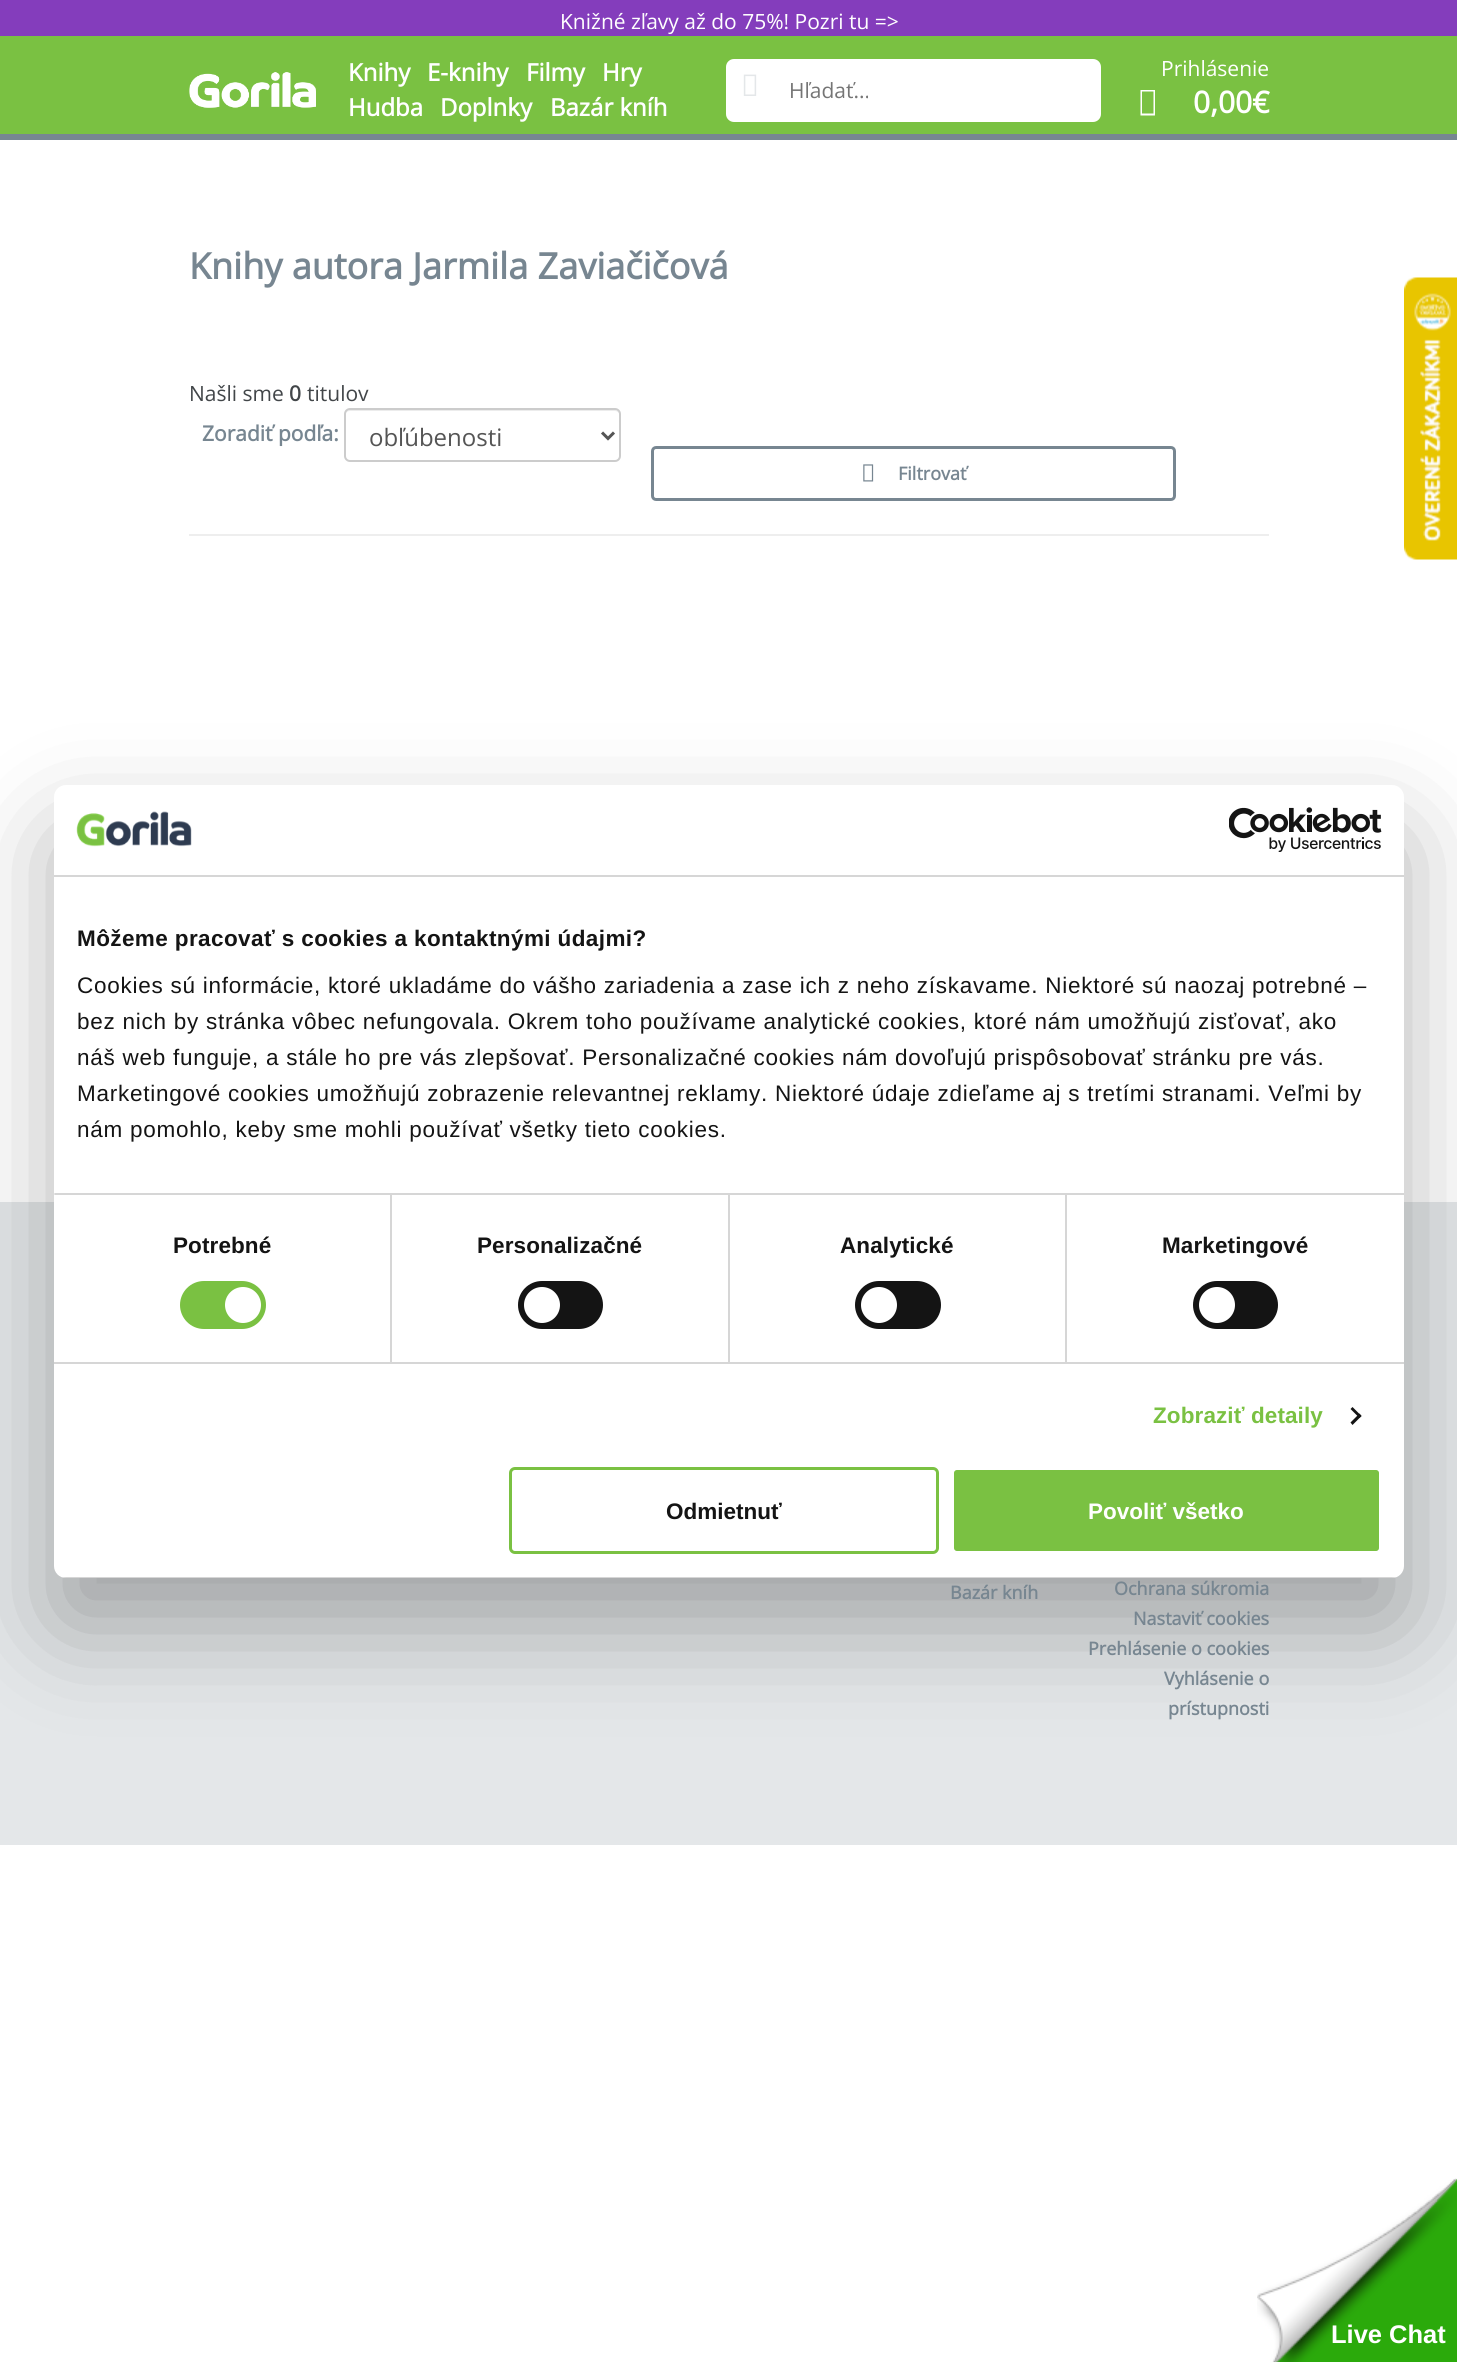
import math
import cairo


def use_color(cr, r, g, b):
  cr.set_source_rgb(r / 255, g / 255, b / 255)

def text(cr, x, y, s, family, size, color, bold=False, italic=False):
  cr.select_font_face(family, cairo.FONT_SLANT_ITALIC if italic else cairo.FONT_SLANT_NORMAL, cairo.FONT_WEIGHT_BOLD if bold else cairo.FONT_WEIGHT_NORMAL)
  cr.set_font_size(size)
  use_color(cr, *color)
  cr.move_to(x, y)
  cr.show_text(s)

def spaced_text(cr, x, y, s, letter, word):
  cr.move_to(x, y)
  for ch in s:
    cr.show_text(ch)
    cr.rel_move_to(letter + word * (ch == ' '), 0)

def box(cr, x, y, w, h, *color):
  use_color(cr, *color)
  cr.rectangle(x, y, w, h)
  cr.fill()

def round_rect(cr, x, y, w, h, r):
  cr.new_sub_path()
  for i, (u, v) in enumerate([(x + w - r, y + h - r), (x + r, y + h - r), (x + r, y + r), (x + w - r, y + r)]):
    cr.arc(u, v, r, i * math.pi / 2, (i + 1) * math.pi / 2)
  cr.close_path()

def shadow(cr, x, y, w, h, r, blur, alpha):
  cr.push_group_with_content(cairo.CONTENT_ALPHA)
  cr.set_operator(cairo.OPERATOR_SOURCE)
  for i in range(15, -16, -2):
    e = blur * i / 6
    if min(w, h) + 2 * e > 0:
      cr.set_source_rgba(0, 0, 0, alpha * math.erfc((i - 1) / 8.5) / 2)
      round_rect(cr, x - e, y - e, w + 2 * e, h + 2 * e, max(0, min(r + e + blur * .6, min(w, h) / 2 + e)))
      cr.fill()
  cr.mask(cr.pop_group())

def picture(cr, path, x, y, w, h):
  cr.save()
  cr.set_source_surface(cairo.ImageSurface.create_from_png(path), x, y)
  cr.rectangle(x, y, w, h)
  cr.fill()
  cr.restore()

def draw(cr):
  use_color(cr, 255, 255, 255)
  cr.paint()
  box(cr, 0, 0, 1457, 36, 132, 61, 188)
  box(cr, 0, 36, 1457, 98, 122, 193, 66)
  box(cr, 0, 134, 1457, 6, 119, 134, 145)
  picture(cr, "img_01.png", 189, 72, 127, 36)
  use_color(cr, 255, 255, 255)
  round_rect(cr, 726, 59, 375, 63, 8)
  cr.fill()
  picture(cr, "img_02.png", 743, 74, 14, 22)
  cr.new_path()
  cr.move_to(1140.5, 115.5)
  cr.line_to(1140.5, 90)
  cr.line_to(1155, 90)
  cr.line_to(1155, 115.5)
  cr.close_path()
  cr.move_to(1142, 113.5)
  cr.line_to(1153.5, 113.5)
  cr.line_to(1153.5, 91.5)
  cr.line_to(1142, 91.5)
  cr.close_path()
  cr.fill()
  use_color(cr, 236, 236, 236)
  cr.new_path()
  cr.move_to(350, 411)
  cr.line_to(615, 411)
  cr.curve_to(617, 411, 620, 413, 620, 416)
  cr.curve_to(620, 413, 618, 410, 615, 410)
  cr.line_to(350, 410)
  cr.curve_to(347, 410, 345, 413, 345, 416)
  cr.curve_to(345, 413, 347, 411, 350, 411)
  cr.close_path()
  cr.fill()
  round_rect(cr, 345, 409, 275, 52, 5)
  use_color(cr, 204, 204, 204)
  cr.stroke()
  cr.new_path()
  cr.move_to(602, 432.5)
  cr.line_to(608, 438.5)
  cr.line_to(614, 432.5)
  use_color(cr, 85, 85, 85)
  cr.set_line_width(3)
  cr.stroke()
  round_rect(cr, 652.5, 447.5, 522, 52, 3.5)
  use_color(cr, 119, 134, 145)
  cr.stroke()
  picture(cr, "img_03.png", 863, 464, 11, 18)
  box(cr, 189, 534, 1080, 2, 238, 238, 238)
  picture(cr, "img_04.png", 1404, 277, 53, 283)
  box(cr, 0, 1202, 1457, 643, 228, 231, 233)
  use_color(cr, 0, 0, 0)
  shadow(cr, 54, 833, 1350, 793, 12, 51, 0.3)
  use_color(cr, 255, 255, 255)
  round_rect(cr, 54, 785, 1350, 793, 12)
  cr.fill()
  box(cr, 54, 875, 1350, 2, 214, 214, 214)
  picture(cr, "img_05.png", 76, 811, 116, 36)
  picture(cr, "img_06.png", 1229, 807, 153, 45)
  box(cr, 390, 1194, 2, 168, 214, 214, 214)
  box(cr, 728, 1194, 2, 168, 214, 214, 214)
  box(cr, 1065, 1194, 2, 168, 214, 214, 214)
  box(cr, 54, 1193, 1350, 2, 214, 214, 214)
  box(cr, 54, 1362, 1350, 2, 214, 214, 214)
  box(cr, 54, 1193, 1, 2, 229, 229, 229)
  use_color(cr, 122, 193, 66)
  round_rect(cr, 180, 1281, 86, 48, 24)
  cr.fill()
  use_color(cr, 255, 255, 255)
  cr.arc(243, 1305, 18, 0, 2 * math.pi)
  cr.fill()
  use_color(cr, 20, 20, 20)
  round_rect(cr, 518, 1281, 85, 48, 24)
  cr.fill()
  use_color(cr, 255, 255, 255)
  cr.arc(542, 1305, 18, 0, 2 * math.pi)
  cr.fill()
  use_color(cr, 20, 20, 20)
  round_rect(cr, 855, 1281, 86, 48, 24)
  cr.fill()
  use_color(cr, 255, 255, 255)
  cr.arc(879, 1305, 18, 0, 2 * math.pi)
  cr.fill()
  use_color(cr, 20, 20, 20)
  round_rect(cr, 1193, 1281, 85, 48, 24)
  cr.fill()
  use_color(cr, 255, 255, 255)
  cr.arc(1217, 1305, 18, 0, 2 * math.pi)
  cr.fill()
  use_color(cr, 20, 20, 20)
  cr.new_path()
  cr.move_to(1352.5, 1407)
  cr.line_to(1361.5, 1416)
  cr.line_to(1359.5, 1418)
  cr.line_to(1350.5, 1409)
  cr.close_path()
  cr.fill()
  cr.new_path()
  cr.move_to(1359.5, 1413.5)
  cr.line_to(1361.5, 1416)
  cr.line_to(1352.5, 1425)
  cr.line_to(1350.5, 1422.5)
  cr.close_path()
  cr.fill()
  cr.save()
  round_rect(cr, 54, 785, 1350, 793, 12)
  cr.clip()
  box(cr, 54, 1577, 1350, 1, 214, 214, 214)
  cr.restore()
  round_rect(cr, 510.5, 1468.5, 427, 84, 4.5)
  use_color(cr, 122, 193, 66)
  cr.stroke()
  round_rect(cr, 952.5, 1468.5, 428, 84, 4.5)
  cr.fill_preserve()
  use_color(cr, 255, 255, 255)
  cr.stroke()
  use_color(cr, 43, 170, 11)
  cr.new_path()
  cr.move_to(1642, 2362)
  cr.line_to(1274, 2362)
  cr.line_to(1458, 2178)
  cr.close_path()
  cr.fill()
  picture(cr, "img_07.png", 1257, 2178, 200, 184)
  text(cr, 560, 29, "Knižné zľavy až do 75%! Pozri tu =>", "Open Sans", 21, (255, 255, 255))
  text(cr, 348, 81, "Knihy", "Open Sans", 24, (255, 255, 255), bold=True)
  text(cr, 427, 81, "E-knihy", "Open Sans", 24, (255, 255, 255), bold=True)
  text(cr, 526, 81, "Filmy", "Open Sans", 24, (255, 255, 255), bold=True)
  text(cr, 602, 81, "Hry", "Open Sans", 24, (255, 255, 255), bold=True)
  text(cr, 348, 116, "Hudba", "Open Sans", 24, (255, 255, 255), bold=True)
  text(cr, 440, 116, "Doplnky", "Open Sans", 24, (255, 255, 255), bold=True)
  text(cr, 550, 116, "Bazár kníh", "Open Sans", 24, (255, 255, 255), bold=True)
  text(cr, 789, 98, "Hľadať...", "Open Sans", 21, (117, 117, 117))
  text(cr, 1161, 76, "Prihlásenie", "Open Sans", 21, (255, 255, 255))
  text(cr, 1193, 113, "0,00€", "Open Sans", 30, (255, 255, 255), bold=True)
  text(cr, 189, 279, "Knihy autora Jarmila Zaviačičová", "Open Sans", 36, (119, 134, 145), bold=True)
  text(cr, 189, 401, "Našli sme", "Open Sans", 21, (66, 70, 73))
  text(cr, 289, 401, "0", "Open Sans", 21, (66, 70, 73), bold=True)
  text(cr, 307, 401, "titulov", "Open Sans", 21, (66, 70, 73))
  text(cr, 202, 441, "Zoradiť podľa:", "Open Sans", 21, (119, 134, 145), bold=True)
  text(cr, 369, 446, "obľúbenosti", "Open Sans", 24, (85, 85, 85))
  text(cr, 898, 480, "Filtrovať", "Open Sans", 18, (119, 134, 145), bold=True)
  cr.select_font_face("Liberation Sans", cairo.FONT_SLANT_NORMAL, cairo.FONT_WEIGHT_BOLD)
  cr.set_font_size(22.5)
  use_color(cr, 20, 20, 20)
  spaced_text(cr, 77, 946, "Môžeme pracovať s cookies a kontaktnými údajmi?", 0.4, 0)
  cr.select_font_face("Liberation Sans")
  spaced_text(cr, 77, 993, "Cookies sú informácie, ktoré ukladáme do vášho zariadenia a zase ich z neho získavame. Niektoré sú naozaj potrebné –", 0.75, 0)
  spaced_text(cr, 77, 1029, "bez nich by stránka vôbec nefungovala. Okrem toho používame analytické cookies, ktoré nám umožňujú zisťovať, ako", 0.75, 0)
  spaced_text(cr, 77, 1065, "náš web funguje, a stále ho pre vás zlepšovať. Personalizačné cookies nám dovoľujú prispôsobovať stránku pre vás.", 0.75, 0)
  spaced_text(cr, 77, 1101, "Marketingové cookies umožňujú zobrazenie relevantnej reklamy. Niektoré údaje zdieľame aj s tretími stranami. Veľmi by", 0.75, 0)
  spaced_text(cr, 77, 1137, "nám pomohlo, keby sme mohli používať všetky tieto cookies.", 0.75, 0)
  cr.select_font_face("Liberation Sans", cairo.FONT_SLANT_NORMAL, cairo.FONT_WEIGHT_BOLD)
  spaced_text(cr, 173, 1253, "Potrebné", 0.1, 0)
  spaced_text(cr, 477, 1253, "Personalizačné", 0.1, 0)
  spaced_text(cr, 840, 1253, "Analytické", 0.1, 0)
  spaced_text(cr, 1162, 1253, "Marketingové", 0.1, 0)
  use_color(cr, 122, 193, 66)
  spaced_text(cr, 1153, 1423, "Zobraziť detaily", 0.1, 0)
  text(cr, 666, 1519, "Odmietnuť", "Liberation Sans", 22.5, (20, 20, 20), bold=True)
  text(cr, 1088, 1519, "Povoliť všetko", "Liberation Sans", 22.5, (255, 255, 255), bold=True)
  text(cr, 950, 1599, "Bazár kníh", "Open Sans", 18, (119, 134, 145), bold=True)
  text(cr, 1114, 1595, "Ochrana súkromia", "Open Sans", 18, (119, 134, 145), bold=True)
  text(cr, 1133, 1625, "Nastaviť cookies", "Open Sans", 18, (119, 134, 145), bold=True)
  text(cr, 1088, 1655, "Prehlásenie o cookies", "Open Sans", 18, (119, 134, 145), bold=True)
  text(cr, 1164, 1685, "Vyhlásenie o", "Open Sans", 18, (119, 134, 145), bold=True)
  text(cr, 1168, 1715, "prístupnosti", "Open Sans", 18, (119, 134, 145), bold=True)
  text(cr, 1331, 2343, "Live Chat", "Liberation Sans", 25.5, (255, 255, 255), bold=True)


surface = cairo.ImageSurface(cairo.FORMAT_RGB24, 1457, 2362)
cr = cairo.Context(surface)
options = cairo.FontOptions()
options.set_hint_metrics(cairo.HINT_METRICS_OFF)
options.set_hint_style(cairo.HINT_STYLE_NONE)
cr.set_font_options(options)
cr.set_miter_limit(4)
draw(cr)
surface.write_to_png("out.png")
